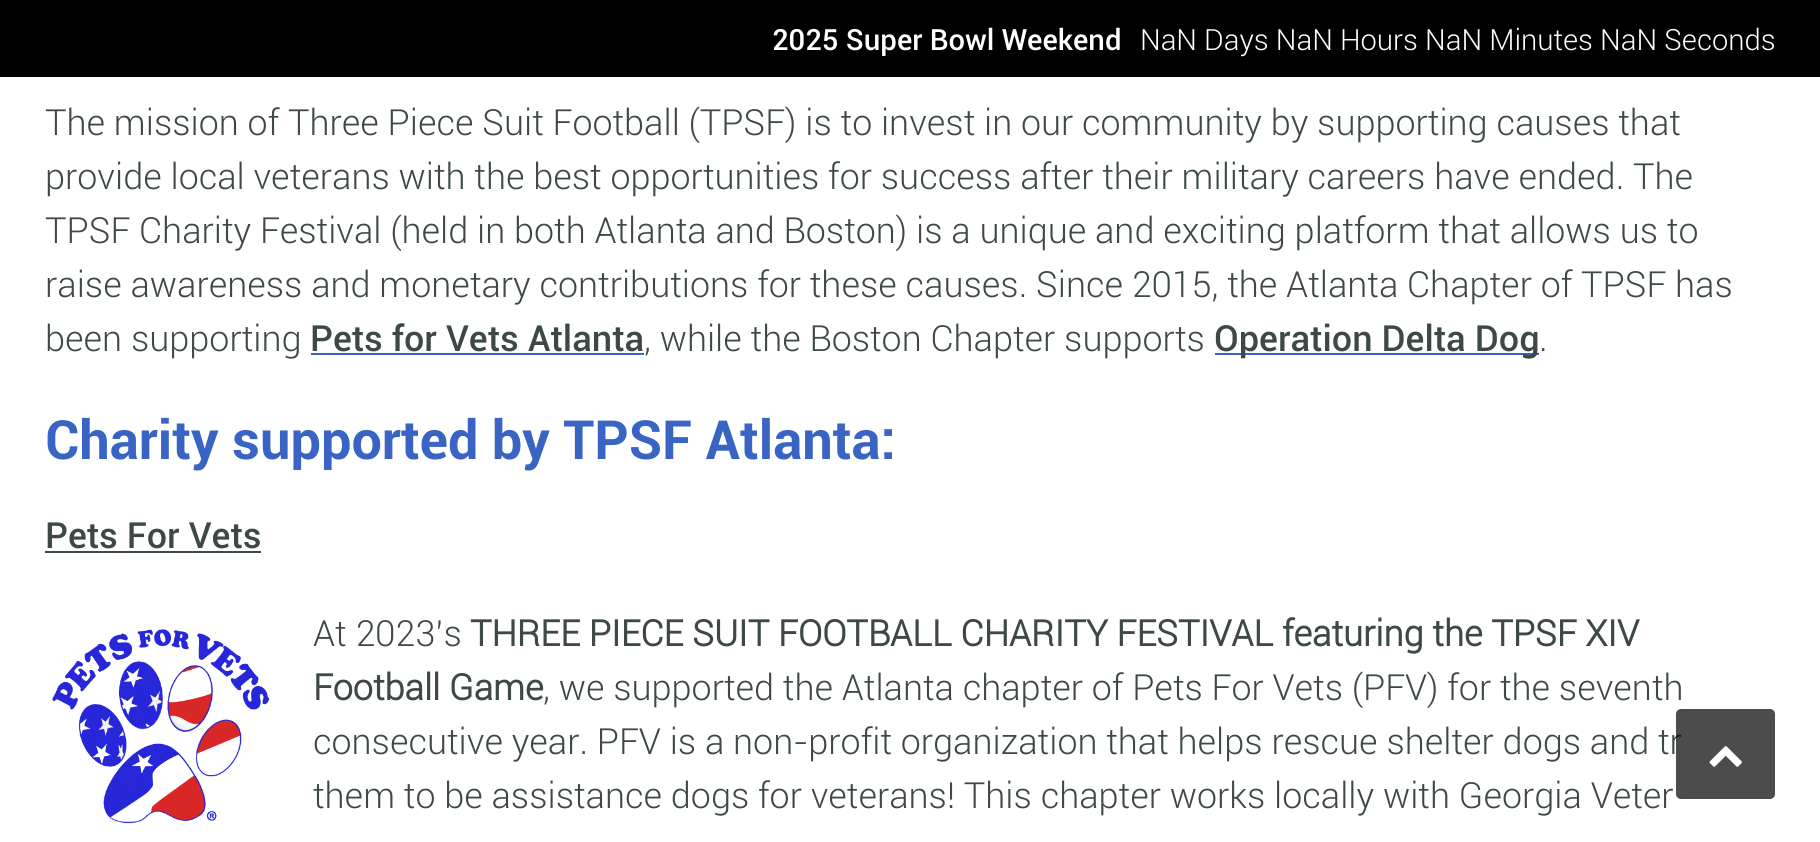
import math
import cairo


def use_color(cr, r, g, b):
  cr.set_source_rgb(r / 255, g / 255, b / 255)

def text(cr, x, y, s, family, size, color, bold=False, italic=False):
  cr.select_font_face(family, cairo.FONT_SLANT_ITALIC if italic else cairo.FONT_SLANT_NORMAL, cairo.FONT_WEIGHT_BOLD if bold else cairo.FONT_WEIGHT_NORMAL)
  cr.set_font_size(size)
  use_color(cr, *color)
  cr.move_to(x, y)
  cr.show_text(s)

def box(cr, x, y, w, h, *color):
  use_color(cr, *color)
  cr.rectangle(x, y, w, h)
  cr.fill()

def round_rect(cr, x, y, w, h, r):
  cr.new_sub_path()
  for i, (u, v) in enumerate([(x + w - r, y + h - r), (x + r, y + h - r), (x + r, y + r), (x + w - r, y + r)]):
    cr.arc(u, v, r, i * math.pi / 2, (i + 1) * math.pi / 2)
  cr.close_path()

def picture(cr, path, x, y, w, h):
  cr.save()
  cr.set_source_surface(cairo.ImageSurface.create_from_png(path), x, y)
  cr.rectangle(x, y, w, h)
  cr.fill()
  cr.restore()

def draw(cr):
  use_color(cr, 255, 255, 255)
  cr.paint()
  box(cr, 0, 0, 1820, 77, 0, 0, 0)
  box(cr, 311, 353, 333, 2, 57, 100, 195)
  box(cr, 1215, 353, 324, 2, 57, 100, 195)
  box(cr, 45, 551, 216, 2, 61, 73, 66)
  picture(cr, "img_01.png", 52, 629, 218, 195)
  text(cr, 772, 50, "2025 Super Bowl Weekend", "Roboto Medium", 29.25, (255, 255, 255))
  text(cr, 1140, 50, "NaN Days NaN Hours NaN Minutes NaN Seconds", "Roboto Light", 29.25, (255, 255, 255))
  text(cr, 45, 135, "The mission of Three Piece Suit Football (TPSF) is to invest in our community by supporting causes that", "Roboto Light", 36, (61, 73, 66))
  text(cr, 45, 189, "provide local veterans with the best opportunities for success after their military careers have ended. The", "Roboto Light", 36, (61, 73, 66))
  text(cr, 45, 243, "TPSF Charity Festival (held in both Atlanta and Boston) is a unique and exciting platform that allows us to", "Roboto Light", 36, (61, 73, 66))
  text(cr, 45, 297, "raise awareness and monetary contributions for these causes. Since 2015, the Atlanta Chapter of TPSF has", "Roboto Light", 36, (61, 73, 66))
  text(cr, 45, 351, "been supporting", "Roboto Light", 36, (61, 73, 66))
  text(cr, 310, 351, "Pets for Vets Atlanta", "Roboto Medium", 36, (61, 73, 66))
  text(cr, 644, 351, ", while the Boston Chapter supports", "Roboto Light", 36, (61, 73, 66))
  text(cr, 1214, 351, "Operation Delta Dog", "Roboto Medium", 36, (61, 73, 66))
  text(cr, 1539, 351, ".", "Roboto Light", 36, (61, 73, 66))
  text(cr, 45, 459, "Charity supported by TPSF Atlanta:", "Roboto", 54, (57, 100, 195), bold=True)
  text(cr, 45, 548, "Pets For Vets", "Roboto Medium", 36, (61, 73, 66))
  text(cr, 313, 646, "At 2023’s", "Roboto Light", 36, (61, 73, 66))
  text(cr, 470, 646, "THREE PIECE SUIT FOOTBALL CHARITY FESTIVAL featuring the TPSF XIV", "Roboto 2", 36, (61, 73, 66), bold=True)
  text(cr, 313, 700, "Football Game", "Roboto 2", 36, (61, 73, 66), bold=True)
  text(cr, 543, 700, ", we supported the Atlanta chapter of Pets For Vets (PFV) for the seventh", "Roboto Light", 36, (61, 73, 66))
  text(cr, 313, 754, "consecutive year. PFV is a non-profit organization that helps rescue shelter dogs and tr", "Roboto Light", 36, (61, 73, 66))
  text(cr, 313, 808, "them to be assistance dogs for veterans! This chapter works locally with Georgia Veter", "Roboto Light", 36, (61, 73, 66))
  cr.set_source_rgba(0, 0, 0, 0.7)
  round_rect(cr, 1676, 709, 99, 90, 5)
  cr.fill()
  picture(cr, "img_02.png", 1709, 746, 33, 21)


surface = cairo.ImageSurface(cairo.FORMAT_RGB24, 1820, 842)
cr = cairo.Context(surface)
options = cairo.FontOptions()
options.set_hint_metrics(cairo.HINT_METRICS_OFF)
options.set_hint_style(cairo.HINT_STYLE_NONE)
cr.set_font_options(options)
cr.set_miter_limit(4)
draw(cr)
surface.write_to_png("out.png")
